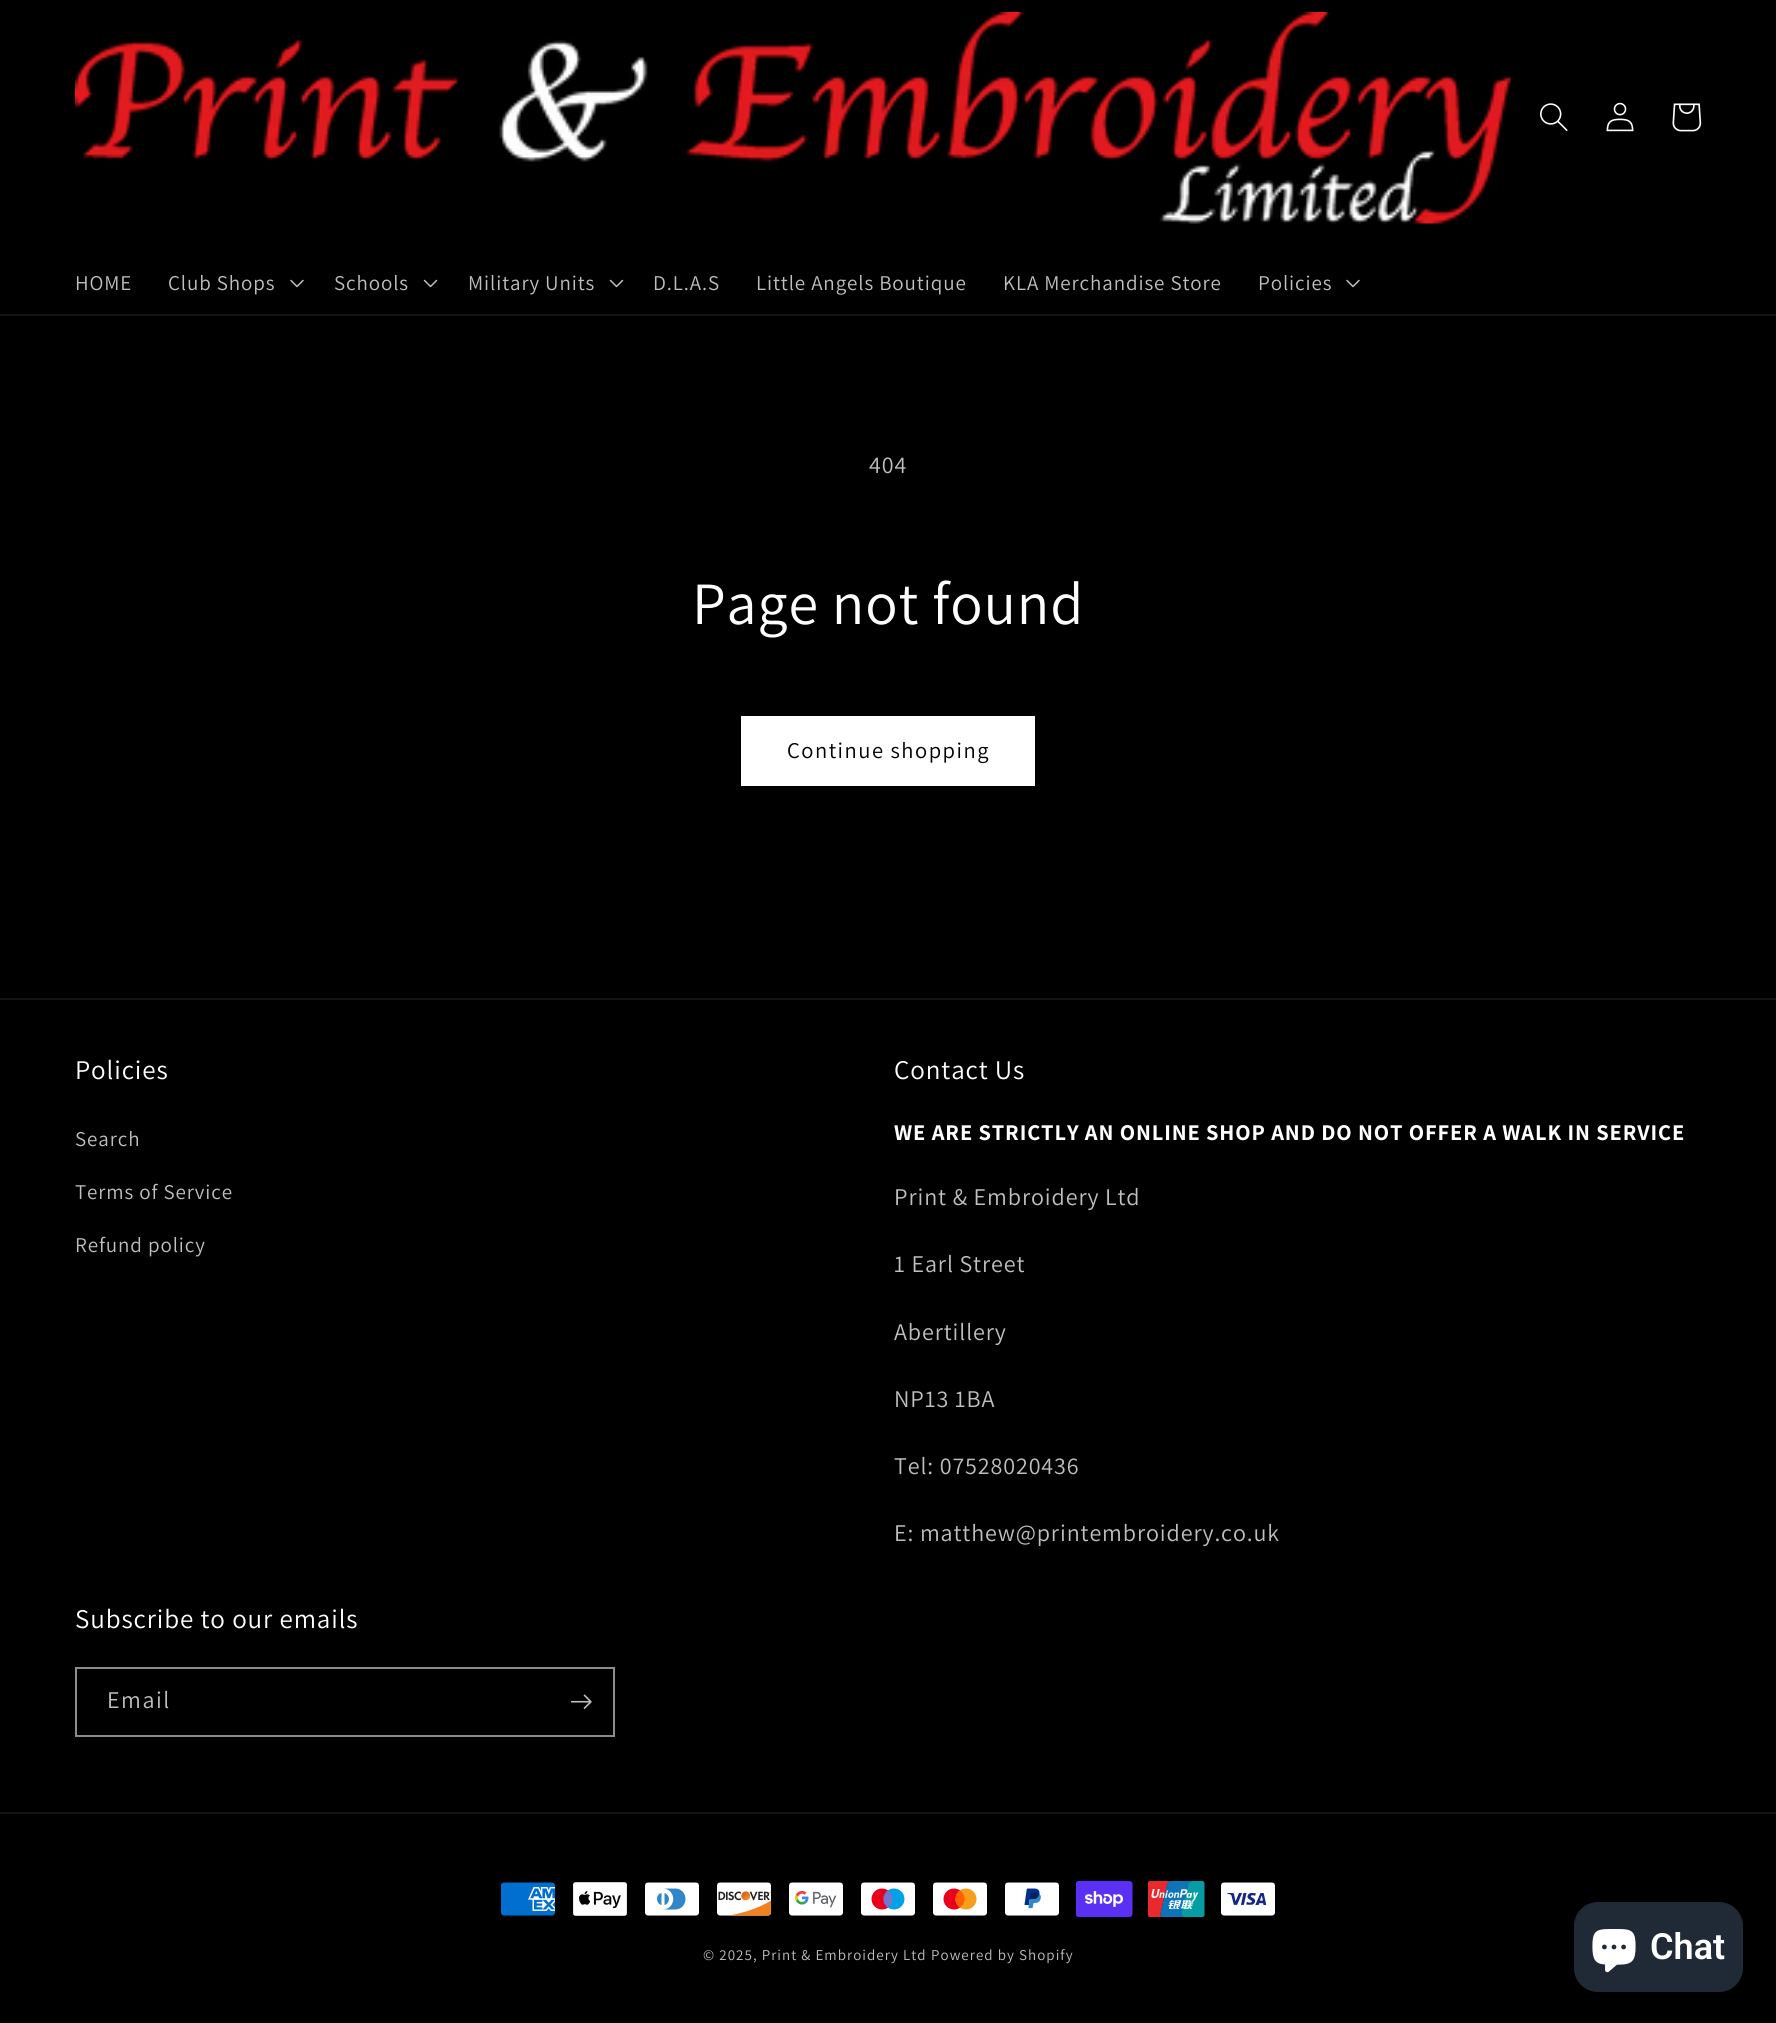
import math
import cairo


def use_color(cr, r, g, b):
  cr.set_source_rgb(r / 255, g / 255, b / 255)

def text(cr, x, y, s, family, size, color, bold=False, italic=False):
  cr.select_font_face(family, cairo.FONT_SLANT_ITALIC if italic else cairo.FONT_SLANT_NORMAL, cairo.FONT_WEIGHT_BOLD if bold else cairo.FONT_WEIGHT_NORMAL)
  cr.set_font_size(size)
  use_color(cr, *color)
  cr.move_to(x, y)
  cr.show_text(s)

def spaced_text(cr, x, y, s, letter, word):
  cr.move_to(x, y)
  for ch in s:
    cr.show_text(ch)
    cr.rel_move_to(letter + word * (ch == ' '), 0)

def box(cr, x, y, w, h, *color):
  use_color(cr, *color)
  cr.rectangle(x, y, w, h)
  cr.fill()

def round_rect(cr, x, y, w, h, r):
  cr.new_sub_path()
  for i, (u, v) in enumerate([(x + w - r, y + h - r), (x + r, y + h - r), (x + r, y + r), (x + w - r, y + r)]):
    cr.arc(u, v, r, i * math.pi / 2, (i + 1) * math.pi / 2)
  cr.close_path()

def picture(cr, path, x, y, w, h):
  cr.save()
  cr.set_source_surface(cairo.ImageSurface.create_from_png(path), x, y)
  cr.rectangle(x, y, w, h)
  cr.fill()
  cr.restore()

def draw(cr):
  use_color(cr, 0, 0, 0)
  cr.paint()
  box(cr, 0, 314, 1776, 2, 20, 20, 20)
  picture(cr, "img_01.png", 75, 12, 1436, 212)
  picture(cr, "img_02.png", 1540, 103, 28, 28)
  picture(cr, "img_03.png", 1606, 102, 28, 30)
  picture(cr, "img_04.png", 1672, 103, 30, 29)
  picture(cr, "img_05.png", 290, 279, 14, 9)
  picture(cr, "img_06.png", 423, 279, 15, 9)
  picture(cr, "img_06.png", 609, 279, 15, 9)
  picture(cr, "img_05.png", 1346, 279, 14, 9)
  box(cr, 741, 716, 294, 70, 255, 255, 255)
  box(cr, 0, 998, 1776, 2, 20, 20, 20)
  cr.rectangle(76, 1668, 538, 68)
  use_color(cr, 140, 140, 140)
  cr.stroke()
  picture(cr, "img_07.png", 570, 1694, 22, 15)
  box(cr, 0, 1812, 1776, 2, 20, 20, 20)
  picture(cr, "img_08.png", 501, 1882, 54, 34)
  picture(cr, "img_09.png", 573, 1882, 54, 34)
  picture(cr, "img_10.png", 645, 1882, 54, 34)
  picture(cr, "img_11.png", 717, 1882, 55, 34)
  picture(cr, "img_12.png", 789, 1882, 54, 34)
  picture(cr, "img_13.png", 861, 1882, 54, 34)
  picture(cr, "img_14.png", 933, 1882, 54, 34)
  picture(cr, "img_15.png", 1005, 1882, 54, 34)
  picture(cr, "img_16.png", 1076, 1881, 57, 36)
  picture(cr, "img_17.png", 1148, 1881, 57, 36)
  picture(cr, "img_18.png", 1221, 1882, 54, 34)
  use_color(cr, 32, 42, 54)
  round_rect(cr, 1574, 1902, 169, 90, 24)
  cr.fill()
  picture(cr, "img_19.png", 1592, 1929, 44, 44)
  cr.select_font_face("Assistant")
  cr.set_font_size(21)
  use_color(cr, 191, 191, 191)
  spaced_text(cr, 75, 290, "HOME", 0.9, 0)
  spaced_text(cr, 168, 290, "Club Shops", 0.9, 0)
  spaced_text(cr, 334, 290, "Schools", 0.9, 0)
  spaced_text(cr, 468, 290, "Military Units", 0.9, 0)
  spaced_text(cr, 653, 290, "D.L.A.S", 0.9, 0)
  spaced_text(cr, 756, 290, "Little Angels Boutique", 0.9, 0)
  spaced_text(cr, 1003, 290, "KLA Merchandise Store", 0.9, 0)
  spaced_text(cr, 1258, 290, "Policies", 0.9, 0)
  cr.set_font_size(24)
  spaced_text(cr, 869, 473, "404", 0.9, 0)
  cr.set_font_size(60)
  use_color(cr, 255, 255, 255)
  spaced_text(cr, 692, 624, "Page not found", 0.9, 0)
  cr.set_font_size(22.5)
  use_color(cr, 0, 0, 0)
  spaced_text(cr, 787, 758, "Continue shopping", 1.5, 0)
  cr.set_font_size(27)
  use_color(cr, 255, 255, 255)
  spaced_text(cr, 75, 1079, "Policies", 0.9, 0)
  cr.set_font_size(21)
  use_color(cr, 191, 191, 191)
  spaced_text(cr, 75, 1146, "Search", 0.9, 0)
  spaced_text(cr, 75, 1199, "Terms of Service", 0.9, 0)
  spaced_text(cr, 75, 1252, "Refund policy", 0.9, 0)
  cr.set_font_size(27)
  use_color(cr, 255, 255, 255)
  spaced_text(cr, 894, 1079, "Contact Us", 0.9, 0)
  cr.select_font_face("Assistant", cairo.FONT_SLANT_NORMAL, cairo.FONT_WEIGHT_BOLD)
  cr.set_font_size(22.5)
  spaced_text(cr, 894, 1140, "WE ARE STRICTLY AN ONLINE SHOP AND DO NOT OFFER A WALK IN SERVICE", 0.9, 0)
  cr.select_font_face("Assistant")
  cr.set_font_size(24)
  use_color(cr, 191, 191, 191)
  spaced_text(cr, 894, 1205, "Print & Embroidery Ltd", 0.9, 0)
  spaced_text(cr, 894, 1272, "1 Earl Street", 0.9, 0)
  spaced_text(cr, 894, 1340, "Abertillery", 0.9, 0)
  spaced_text(cr, 894, 1407, "NP13 1BA", 0.9, 0)
  spaced_text(cr, 894, 1474, "Tel: 07528020436", 0.9, 0)
  spaced_text(cr, 894, 1541, "E: matthew@printembroidery.co.uk", 0.9, 0)
  cr.set_font_size(27)
  use_color(cr, 255, 255, 255)
  spaced_text(cr, 75, 1628, "Subscribe to our emails", 0.9, 0)
  cr.set_font_size(24)
  use_color(cr, 191, 191, 191)
  spaced_text(cr, 107, 1708, "Email", 1.5, 0)
  cr.set_font_size(15)
  spaced_text(cr, 703, 1960, "© 2025, Print & Embroidery Ltd", 1.05, 0)
  spaced_text(cr, 931, 1960, "Powered by Shopify", 1.05, 0)
  text(cr, 1650, 1959, "Chat", "Roboto SemiBold", 36, (255, 255, 255))


surface = cairo.ImageSurface(cairo.FORMAT_RGB24, 1776, 2023)
cr = cairo.Context(surface)
options = cairo.FontOptions()
options.set_hint_metrics(cairo.HINT_METRICS_OFF)
options.set_hint_style(cairo.HINT_STYLE_NONE)
cr.set_font_options(options)
cr.set_miter_limit(4)
draw(cr)
surface.write_to_png("out.png")
